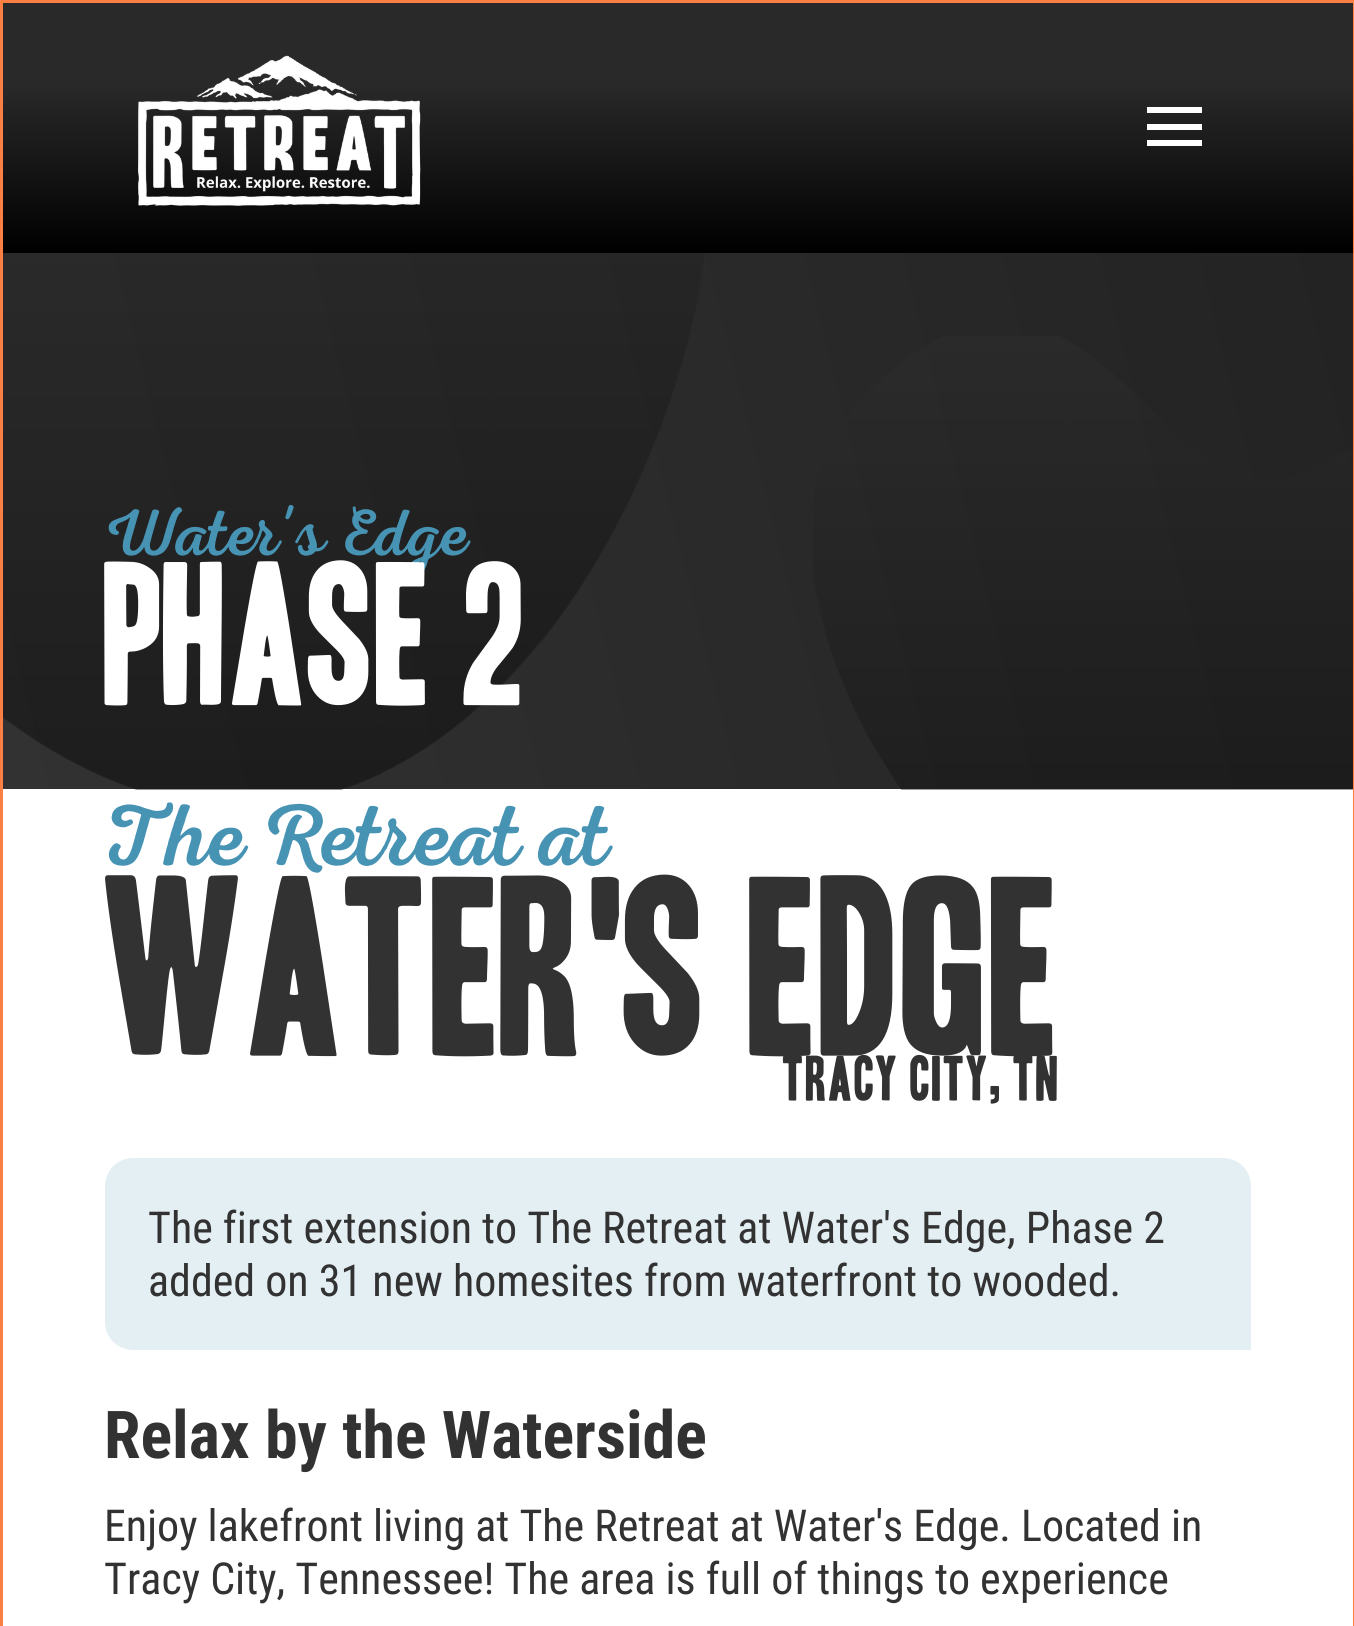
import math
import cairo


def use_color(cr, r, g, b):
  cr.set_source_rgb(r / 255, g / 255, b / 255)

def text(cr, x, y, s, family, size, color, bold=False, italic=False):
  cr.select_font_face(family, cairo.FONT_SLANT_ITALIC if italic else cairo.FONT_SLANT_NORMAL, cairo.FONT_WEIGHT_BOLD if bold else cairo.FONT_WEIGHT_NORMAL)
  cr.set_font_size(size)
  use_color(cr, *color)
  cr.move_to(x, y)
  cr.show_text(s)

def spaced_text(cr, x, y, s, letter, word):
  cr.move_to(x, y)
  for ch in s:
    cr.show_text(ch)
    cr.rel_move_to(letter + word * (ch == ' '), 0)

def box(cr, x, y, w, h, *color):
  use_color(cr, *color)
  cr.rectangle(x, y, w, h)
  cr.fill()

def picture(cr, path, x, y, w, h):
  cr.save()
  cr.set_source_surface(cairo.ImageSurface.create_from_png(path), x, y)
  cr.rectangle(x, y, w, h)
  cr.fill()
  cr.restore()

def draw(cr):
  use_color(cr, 255, 255, 255)
  cr.paint()
  cr.rectangle(1.5, 1.5, 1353, 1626)
  use_color(cr, 254, 127, 67)
  cr.set_line_width(3)
  cr.stroke()
  gradient = cairo.LinearGradient(678, 2.7, 678, 253)
  gradient.add_color_stop_rgba(0.33, 0.161, 0.161, 0.161, 1)
  gradient.add_color_stop_rgba(1, 0, 0, 0, 1)
  cr.set_source(gradient)
  cr.rectangle(3, 3, 1350, 250)
  cr.fill()
  picture(cr, "img_01.png", 138, 55, 283, 151)
  box(cr, 1147, 107, 55, 6, 255, 255, 255)
  box(cr, 1147, 124, 55, 6, 255, 255, 255)
  box(cr, 1147, 140, 55, 6, 255, 255, 255)
  gradient = cairo.LinearGradient(-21, 695, 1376, 347)
  gradient.add_color_stop_rgba(0, 0.196, 0.196, 0.196, 1)
  gradient.add_color_stop_rgba(1, 0.137, 0.137, 0.137, 1)
  cr.set_source(gradient)
  cr.rectangle(3, 253, 1350, 536)
  cr.fill()
  picture(cr, "img_02.png", 3, 253, 701, 537)
  picture(cr, "img_03.png", 813, 336, 540, 454)
  use_color(cr, 228, 239, 244)
  cr.new_path()
  cr.move_to(133, 1158)
  cr.line_to(1223, 1158)
  cr.curve_to(1238.5, 1158, 1251, 1170.5, 1251, 1186)
  cr.line_to(1251, 1350)
  cr.line_to(133, 1350)
  cr.curve_to(117.5, 1350, 105, 1337.5, 105, 1322)
  cr.line_to(105, 1186)
  cr.curve_to(105, 1170.5, 117.5, 1158, 133, 1158)
  cr.close_path()
  cr.fill()
  text(cr, 104, 555, "Water's Edge", "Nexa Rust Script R", 66, (71, 147, 180))
  text(cr, 104, 703, "Phase 2", "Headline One", 176, (255, 255, 255))
  text(cr, 104, 865, "The Retreat at", "Nexa Rust Script R", 88, (71, 147, 180))
  text(cr, 104, 1053, "Water's Edge", "Headline One", 220, (50, 50, 50))
  cr.set_font_size(55)
  spaced_text(cr, 783, 1100, "Tracy City, TN", 1.4, 0)
  text(cr, 148, 1243, "The first extension to The Retreat at Water's Edge, Phase 2", "Roboto Condensed", 44, (50, 50, 50))
  text(cr, 148, 1296, "added on 31 new homesites from waterfront to wooded.", "Roboto Condensed", 44, (50, 50, 50))
  text(cr, 104, 1458, "Relax by the Waterside", "Roboto Condensed", 66, (50, 50, 50), bold=True)
  text(cr, 104, 1541, "Enjoy lakefront living at The Retreat at Water's Edge. Located in", "Roboto Condensed", 44, (50, 50, 50))
  text(cr, 104, 1594, "Tracy City, Tennessee! The area is full of things to experience", "Roboto Condensed", 44, (50, 50, 50))


surface = cairo.ImageSurface(cairo.FORMAT_RGB24, 1354, 1626)
cr = cairo.Context(surface)
options = cairo.FontOptions()
options.set_hint_metrics(cairo.HINT_METRICS_OFF)
options.set_hint_style(cairo.HINT_STYLE_NONE)
cr.set_font_options(options)
cr.set_miter_limit(4)
draw(cr)
surface.write_to_png("out.png")
